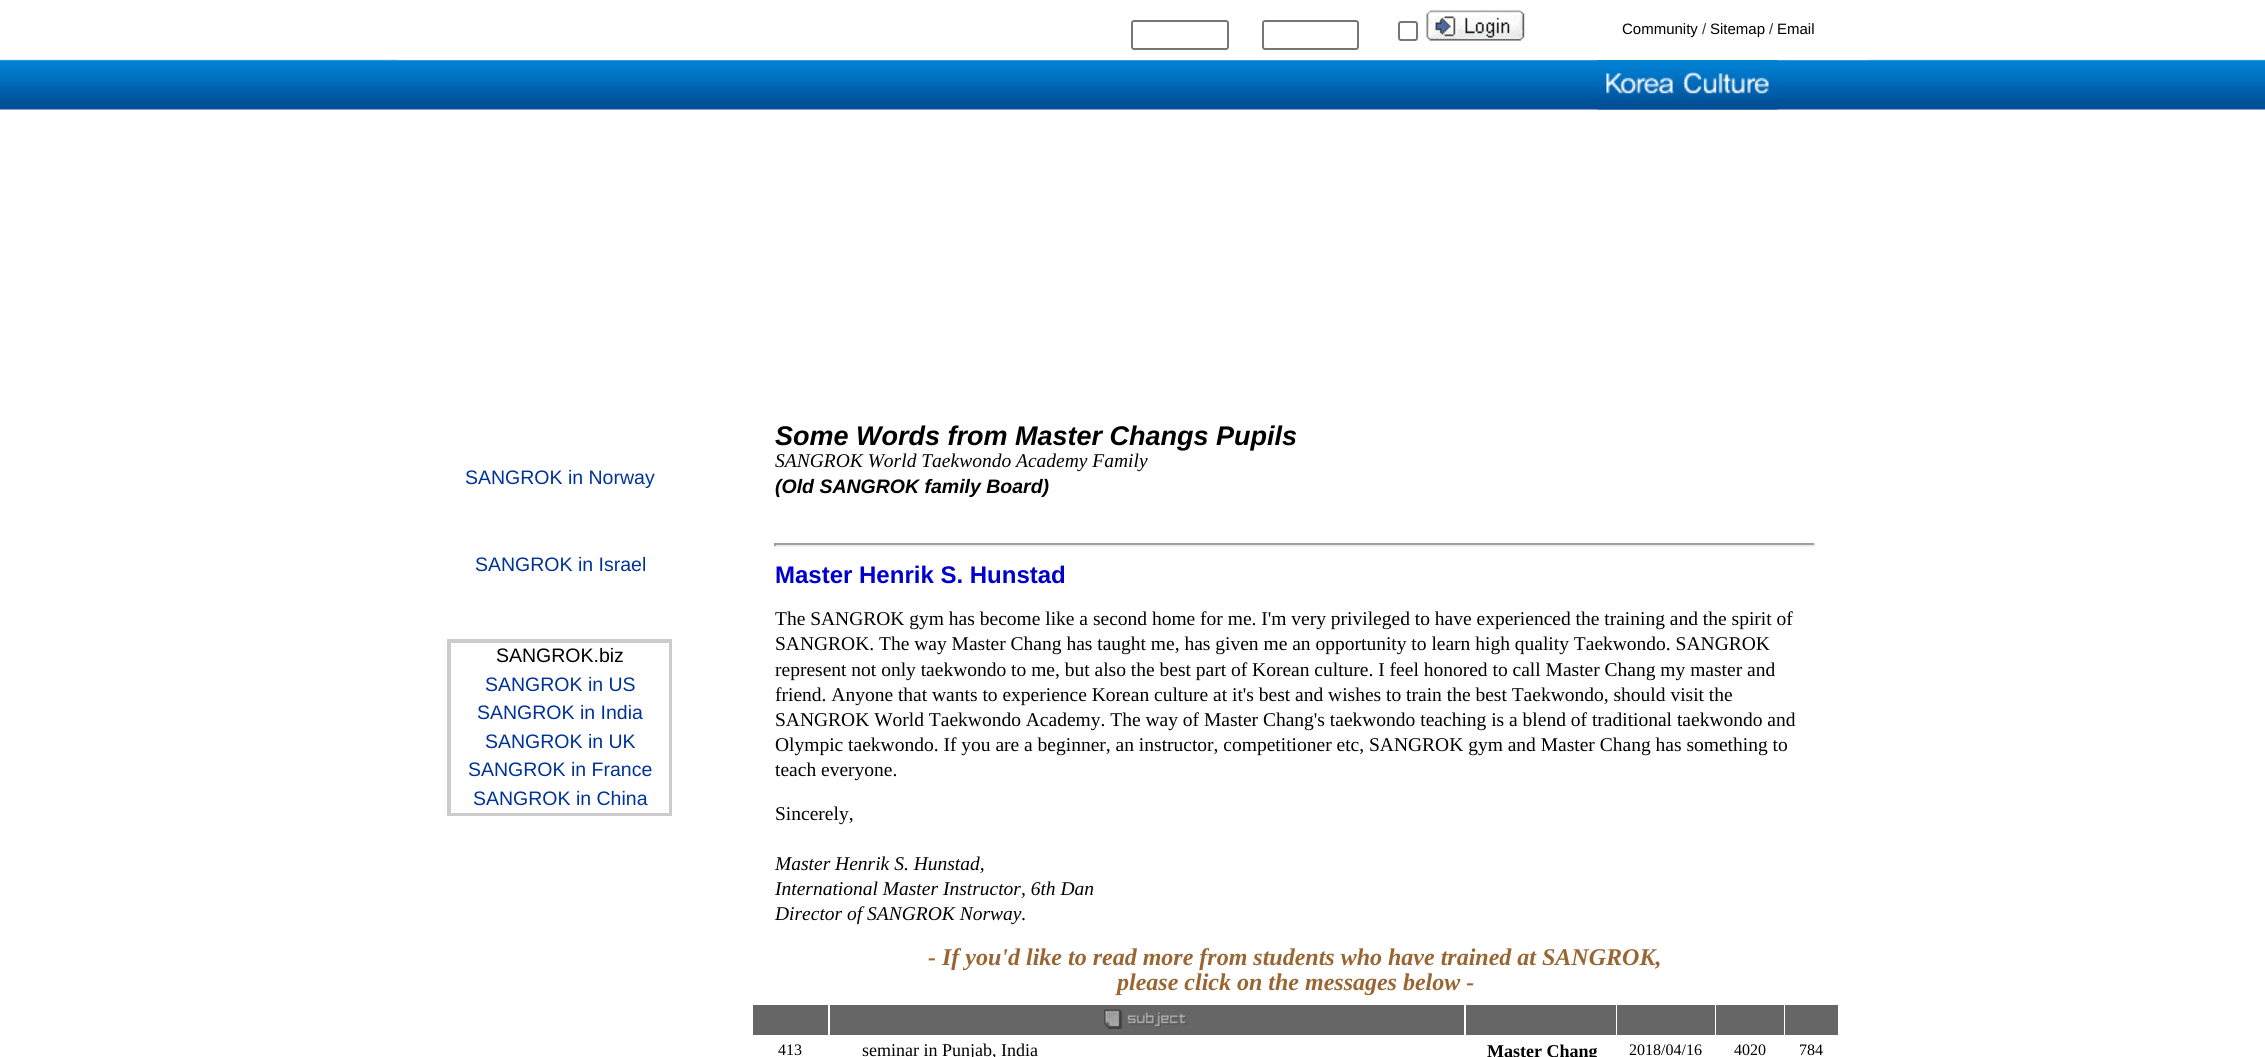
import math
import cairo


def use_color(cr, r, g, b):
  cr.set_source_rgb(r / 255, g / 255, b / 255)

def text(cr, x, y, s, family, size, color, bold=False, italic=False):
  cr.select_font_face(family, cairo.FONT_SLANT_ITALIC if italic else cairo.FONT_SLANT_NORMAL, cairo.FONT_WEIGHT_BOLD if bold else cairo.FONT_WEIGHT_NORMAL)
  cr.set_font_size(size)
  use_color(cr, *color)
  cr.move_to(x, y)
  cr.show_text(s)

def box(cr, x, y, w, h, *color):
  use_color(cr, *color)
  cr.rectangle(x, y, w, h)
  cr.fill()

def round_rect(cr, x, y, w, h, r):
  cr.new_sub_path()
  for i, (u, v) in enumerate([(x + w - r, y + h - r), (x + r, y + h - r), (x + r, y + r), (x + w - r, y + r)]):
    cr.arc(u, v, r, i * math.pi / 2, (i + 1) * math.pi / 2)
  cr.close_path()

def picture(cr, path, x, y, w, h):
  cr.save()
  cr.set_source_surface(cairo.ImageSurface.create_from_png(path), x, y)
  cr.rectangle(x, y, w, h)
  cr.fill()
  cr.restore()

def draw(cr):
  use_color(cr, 255, 255, 255)
  cr.paint()
  picture(cr, "img_01.png", 0, 59, 2265, 51)
  box(cr, 398, 59, 1470, 1, 255, 255, 255)
  round_rect(cr, 1132, 21, 96, 28, 2)
  use_color(cr, 118, 118, 118)
  cr.stroke()
  round_rect(cr, 1263, 21, 95, 28, 2)
  cr.stroke()
  round_rect(cr, 1399, 22, 18, 18, 2)
  cr.stroke()
  picture(cr, "img_02.png", 1426, 10, 99, 31)
  picture(cr, "img_03.png", 1597, 60, 181, 50)
  cr.rectangle(448, 640, 223, 175)
  use_color(cr, 204, 204, 204)
  cr.stroke()
  cr.rectangle(450, 642, 220, 172)
  cr.stroke()
  box(cr, 774, 543, 1041, 2, 159, 159, 159)
  box(cr, 1814, 543, 2, 3, 238, 238, 238)
  box(cr, 774, 545, 1041, 2, 238, 238, 238)
  box(cr, 774, 543, 2, 3, 159, 159, 159)
  box(cr, 753, 1005, 75, 30, 102, 102, 102)
  box(cr, 830, 1005, 634, 30, 102, 102, 102)
  picture(cr, "img_04.png", 1104, 1009, 83, 20)
  box(cr, 1466, 1005, 150, 30, 102, 102, 102)
  box(cr, 1617, 1005, 98, 30, 102, 102, 102)
  box(cr, 1716, 1005, 68, 30, 102, 102, 102)
  box(cr, 1785, 1005, 53, 30, 102, 102, 102)
  text(cr, 1622, 34, "Community", "Liberation Sans", 15, (0, 0, 0))
  text(cr, 1702, 34, "/", "Liberation Sans", 15, (51, 51, 51))
  text(cr, 1710, 34, "Sitemap", "Liberation Sans", 15, (0, 0, 0))
  text(cr, 1769, 34, "/", "Liberation Sans", 15, (51, 51, 51))
  text(cr, 1777, 34, "Email", "Liberation Sans", 15, (0, 0, 0))
  text(cr, 465, 484, "SANGROK in Norway", "Liberation Sans", 19.5, (0, 51, 153))
  text(cr, 475, 571, "SANGROK in Israel", "Liberation Sans", 19.5, (0, 51, 153))
  text(cr, 496, 662, "SANGROK.biz", "Liberation Sans", 19.5, (0, 0, 0))
  text(cr, 485, 691, "SANGROK in US", "Liberation Sans", 19.5, (0, 51, 153))
  text(cr, 477, 719, "SANGROK in India", "Liberation Sans", 19.5, (0, 51, 153))
  text(cr, 485, 748, "SANGROK in UK", "Liberation Sans", 19.5, (0, 51, 153))
  text(cr, 468, 776, "SANGROK in France", "Liberation Sans", 19.5, (0, 51, 153))
  text(cr, 473, 805, "SANGROK in China", "Liberation Sans", 19.5, (0, 51, 153))
  text(cr, 775, 445, "Some Words from Master Changs Pupils", "Liberation Sans", 27, (0, 0, 0), bold=True, italic=True)
  text(cr, 775, 467, "SANGROK World Taekwondo Academy Family", "Liberation Serif", 19.5, (0, 0, 0), italic=True)
  text(cr, 775, 493, "(Old SANGROK family Board)", "Liberation Sans", 19.5, (0, 0, 0), bold=True, italic=True)
  text(cr, 775, 583, "Master Henrik S. Hunstad", "Liberation Sans", 24, (0, 0, 204), bold=True)
  text(cr, 775, 625, "The SANGROK gym has become like a second home for me. I'm very privileged to have experienced the training and the spirit of", "Liberation Serif", 19.5, (0, 0, 0))
  text(cr, 775, 650, "SANGROK. The way Master Chang has taught me, has given me an opportunity to learn high quality Taekwondo. SANGROK", "Liberation Serif", 19.5, (0, 0, 0))
  text(cr, 775, 676, "represent not only taekwondo to me, but also the best part of Korean culture. I feel honored to call Master Chang my master and", "Liberation Serif", 19.5, (0, 0, 0))
  text(cr, 775, 701, "friend. Anyone that wants to experience Korean culture at it's best and wishes to train the best Taekwondo, should visit the", "Liberation Serif", 19.5, (0, 0, 0))
  text(cr, 775, 726, "SANGROK World Taekwondo Academy. The way of Master Chang's taekwondo teaching is a blend of traditional taekwondo and", "Liberation Serif", 19.5, (0, 0, 0))
  text(cr, 775, 751, "Olympic taekwondo. If you are a beginner, an instructor, competitioner etc, SANGROK gym and Master Chang has something to", "Liberation Serif", 19.5, (0, 0, 0))
  text(cr, 775, 776, "teach everyone.", "Liberation Serif", 19.5, (0, 0, 0))
  text(cr, 775, 820, "Sincerely,", "Liberation Serif", 19.5, (0, 0, 0))
  text(cr, 775, 870, "Master Henrik S. Hunstad,", "Liberation Serif", 19.5, (0, 0, 0), italic=True)
  text(cr, 775, 895, "International Master Instructor, 6th Dan", "Liberation Serif", 19.5, (0, 0, 0), italic=True)
  text(cr, 775, 920, "Director of SANGROK Norway.", "Liberation Serif", 19.5, (0, 0, 0), italic=True)
  text(cr, 928, 965, "- If you'd like to read more from students who have trained at SANGROK,", "Liberation Serif", 24, (153, 102, 51), bold=True, italic=True)
  text(cr, 1117, 990, "please click on the messages below -", "Liberation Serif", 24, (153, 102, 51), bold=True, italic=True)
  text(cr, 778, 1055, "413", "Liberation Serif", 16, (0, 0, 0))
  text(cr, 862, 1056, "seminar in Punjab, India", "Liberation Serif", 18, (0, 0, 0))
  text(cr, 1487, 1057, "Master Chang", "Liberation Serif", 18, (0, 0, 0), bold=True)
  text(cr, 1629, 1055, "2018/04/16", "Liberation Serif", 16, (0, 0, 0))
  text(cr, 1734, 1055, "4020", "Liberation Serif", 16, (0, 0, 0))
  text(cr, 1799, 1055, "784", "Liberation Serif", 16, (0, 0, 0))


surface = cairo.ImageSurface(cairo.FORMAT_RGB24, 2265, 1057)
cr = cairo.Context(surface)
options = cairo.FontOptions()
options.set_hint_metrics(cairo.HINT_METRICS_OFF)
options.set_hint_style(cairo.HINT_STYLE_NONE)
cr.set_font_options(options)
cr.set_miter_limit(4)
draw(cr)
surface.write_to_png("out.png")
